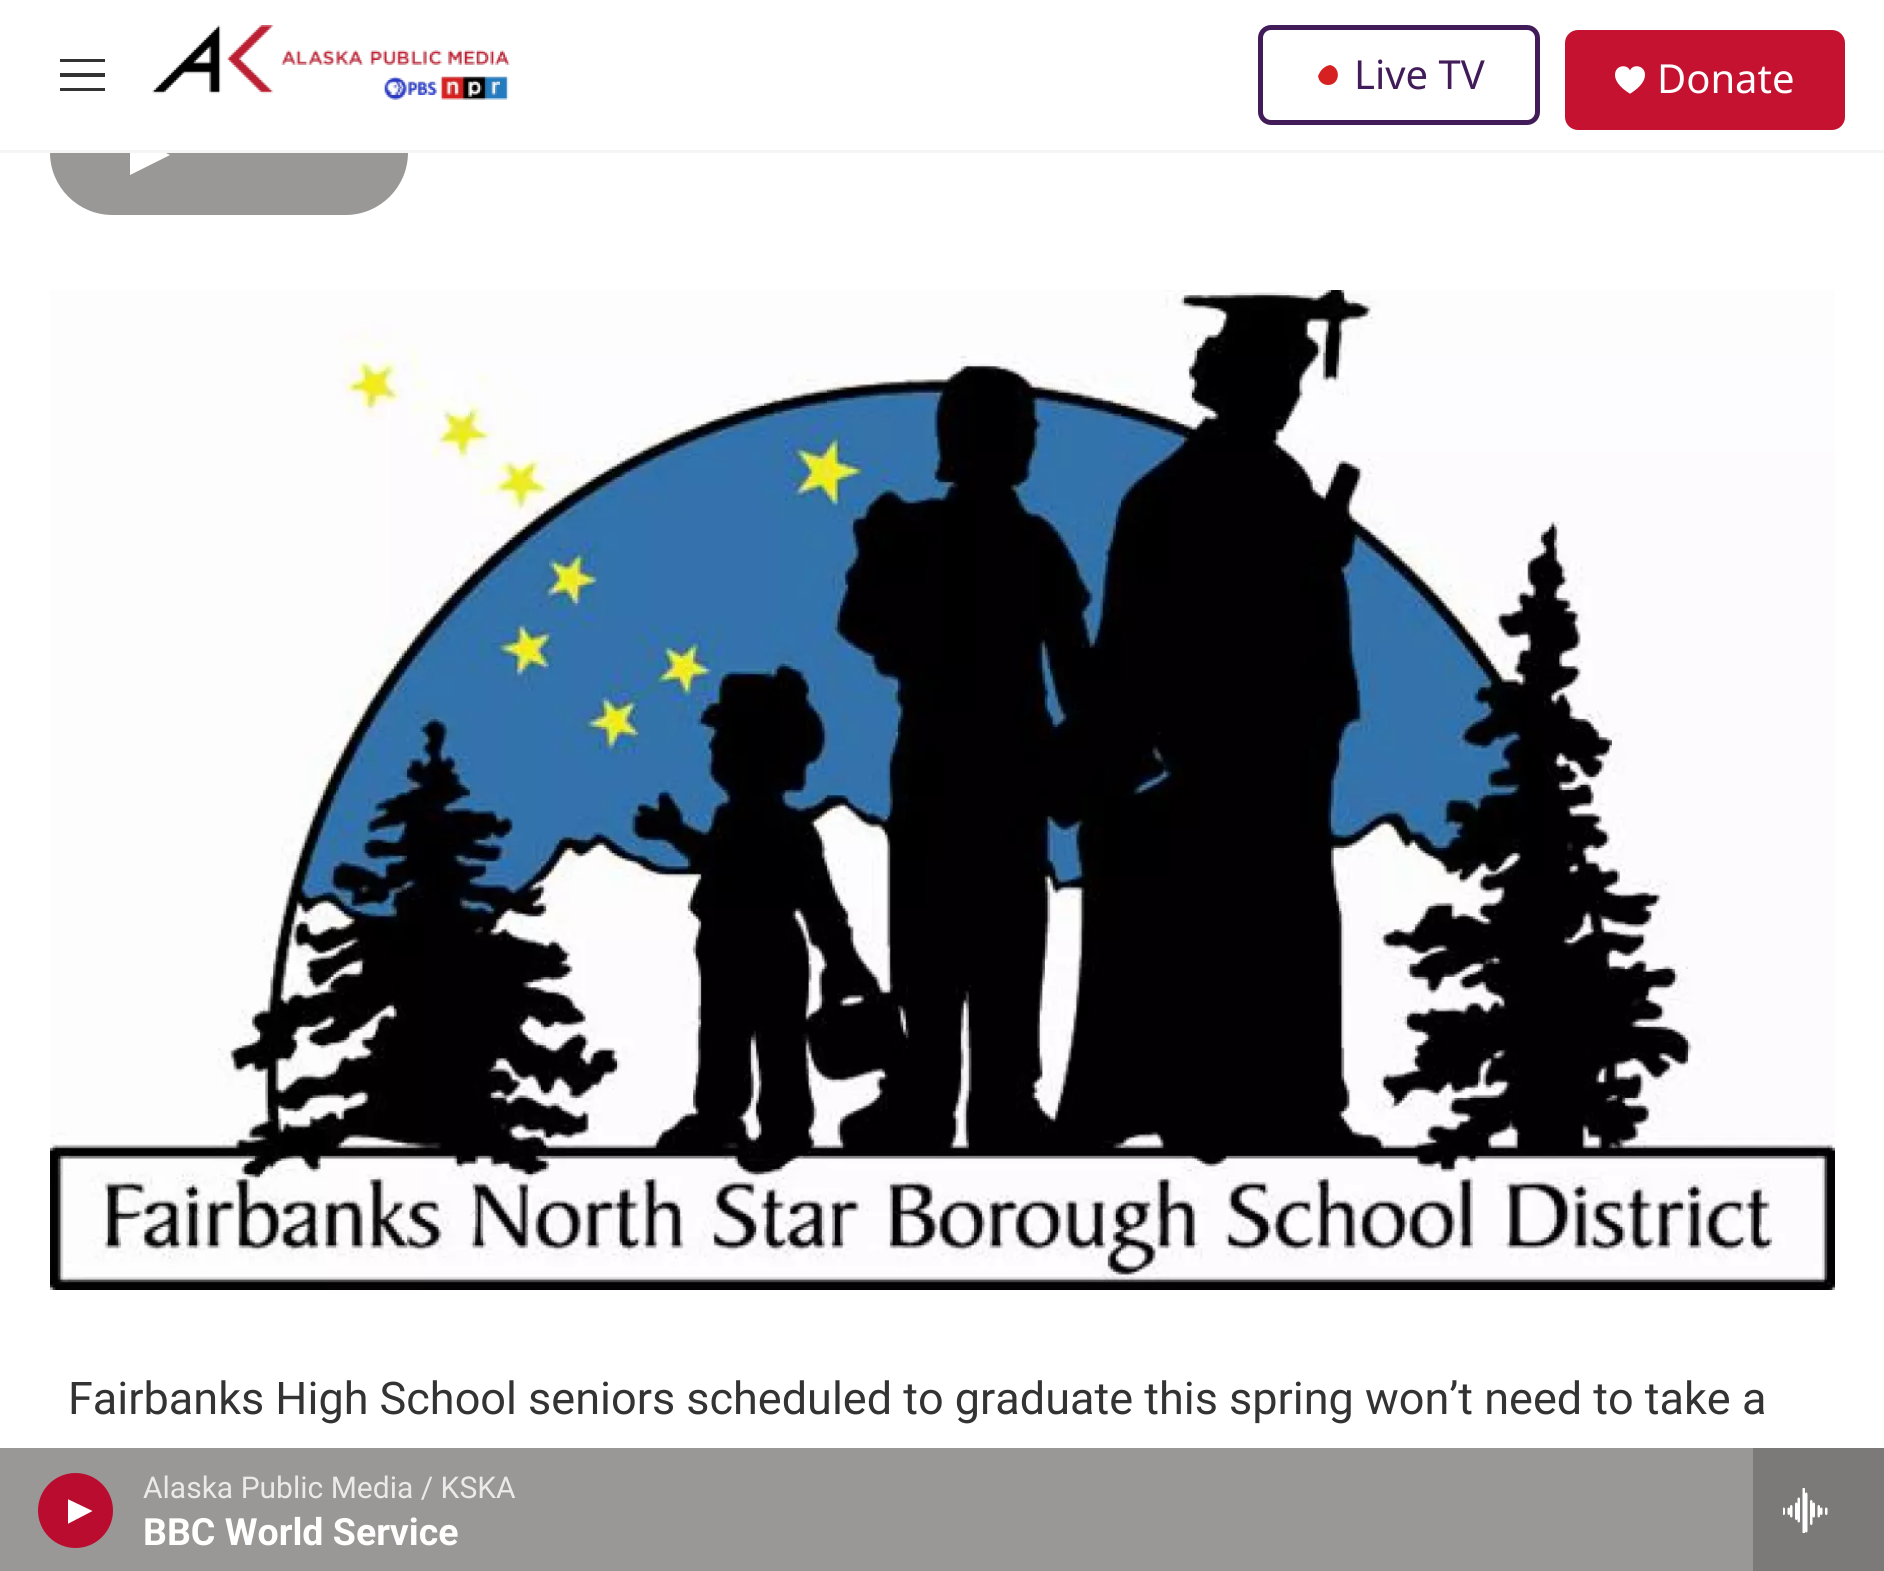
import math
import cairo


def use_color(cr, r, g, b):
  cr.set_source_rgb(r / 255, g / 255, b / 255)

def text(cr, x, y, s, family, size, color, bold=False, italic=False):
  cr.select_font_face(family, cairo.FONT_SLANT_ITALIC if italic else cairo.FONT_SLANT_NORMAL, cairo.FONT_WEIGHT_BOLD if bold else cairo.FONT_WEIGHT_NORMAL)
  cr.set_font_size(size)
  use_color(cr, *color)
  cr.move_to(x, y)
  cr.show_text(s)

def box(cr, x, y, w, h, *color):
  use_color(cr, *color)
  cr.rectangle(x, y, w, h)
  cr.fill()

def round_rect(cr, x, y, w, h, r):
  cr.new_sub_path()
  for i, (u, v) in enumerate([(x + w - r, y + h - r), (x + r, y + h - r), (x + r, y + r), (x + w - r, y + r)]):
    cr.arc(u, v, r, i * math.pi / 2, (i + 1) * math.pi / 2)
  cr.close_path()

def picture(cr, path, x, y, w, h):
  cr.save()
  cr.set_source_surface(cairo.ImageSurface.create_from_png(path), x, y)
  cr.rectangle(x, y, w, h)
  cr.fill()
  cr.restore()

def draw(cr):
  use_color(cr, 255, 255, 255)
  cr.paint()
  use_color(cr, 154, 152, 150)
  round_rect(cr, 50, 90, 358, 125, 62.5)
  cr.fill()
  use_color(cr, 255, 255, 255)
  cr.new_path()
  cr.move_to(130, 135)
  cr.line_to(170, 155)
  cr.line_to(130, 175)
  cr.close_path()
  cr.fill()
  box(cr, 50, 90, 358, 60, 255, 255, 255)
  box(cr, 0, 150, 1884, 3, 245, 245, 245)
  use_color(cr, 51, 51, 51)
  cr.set_fill_rule(cairo.FILL_RULE_EVEN_ODD)
  cr.new_path()
  cr.move_to(60, 77)
  cr.line_to(60, 73)
  cr.line_to(105, 73)
  cr.line_to(105, 77)
  cr.close_path()
  cr.move_to(60, 62)
  cr.line_to(60, 59)
  cr.line_to(105, 59)
  cr.line_to(105, 62)
  cr.close_path()
  cr.move_to(60, 91)
  cr.line_to(60, 88)
  cr.line_to(105, 88)
  cr.line_to(105, 91)
  cr.close_path()
  cr.fill()
  picture(cr, "img_01.png", 152, 25, 358, 75)
  round_rect(cr, 1260.5, 27.5, 277, 95, 10.5)
  use_color(cr, 65, 28, 88)
  cr.set_line_width(5)
  cr.stroke()
  use_color(cr, 214, 32, 33)
  cr.set_fill_rule(cairo.FILL_RULE_WINDING)
  cr.new_path()
  cr.move_to(1330, 65)
  cr.curve_to(1341.5, 67.5, 1340, 85, 1328, 85)
  cr.curve_to(1323.5, 85, 1319.5, 82, 1318.5, 78)
  cr.line_to(1318, 76)
  cr.line_to(1319, 74)
  cr.curve_to(1321, 69.5, 1325, 66, 1330, 65)
  cr.close_path()
  cr.fill()
  use_color(cr, 196, 18, 48)
  round_rect(cr, 1565, 30, 280, 100, 13)
  cr.fill()
  picture(cr, "img_02.png", 1615, 66, 30, 28)
  box(cr, 0, 1448, 1753, 123, 154, 152, 150)
  use_color(cr, 186, 12, 47)
  cr.arc(75.5, 1510.5, 37.5, 0, 2 * math.pi)
  cr.fill()
  cr.save()
  cr.rectangle(68, 1498, 25, 27)
  cr.clip()
  use_color(cr, 255, 255, 255)
  cr.new_path()
  cr.move_to(67.5, 1499)
  cr.line_to(92.5, 1511)
  cr.line_to(67.5, 1524)
  cr.close_path()
  cr.fill()
  cr.restore()
  box(cr, 1753, 1448, 131, 123, 123, 122, 120)
  picture(cr, "img_03.png", 1783, 1488, 45, 45)
  picture(cr, "img_04.png", 50, 290, 1785, 1000)
  text(cr, 1354, 89, "Live TV", "Noto Sans", 40, (65, 28, 88))
  text(cr, 1657, 93, "Donate", "Noto Sans", 40, (255, 255, 255))
  text(cr, 143, 1498, "Alaska Public Media / KSKA", "Roboto", 30, (235, 234, 234))
  text(cr, 143, 1545, "BBC World Service", "Roboto", 37.5, (255, 255, 255), bold=True)
  text(cr, 68, 1414, "Fairbanks High School seniors scheduled to graduate this spring won’t need to take a", "Roboto", 45, (51, 51, 51))


surface = cairo.ImageSurface(cairo.FORMAT_RGB24, 1884, 1571)
cr = cairo.Context(surface)
options = cairo.FontOptions()
options.set_hint_metrics(cairo.HINT_METRICS_OFF)
options.set_hint_style(cairo.HINT_STYLE_NONE)
cr.set_font_options(options)
cr.set_miter_limit(4)
draw(cr)
surface.write_to_png("out.png")
